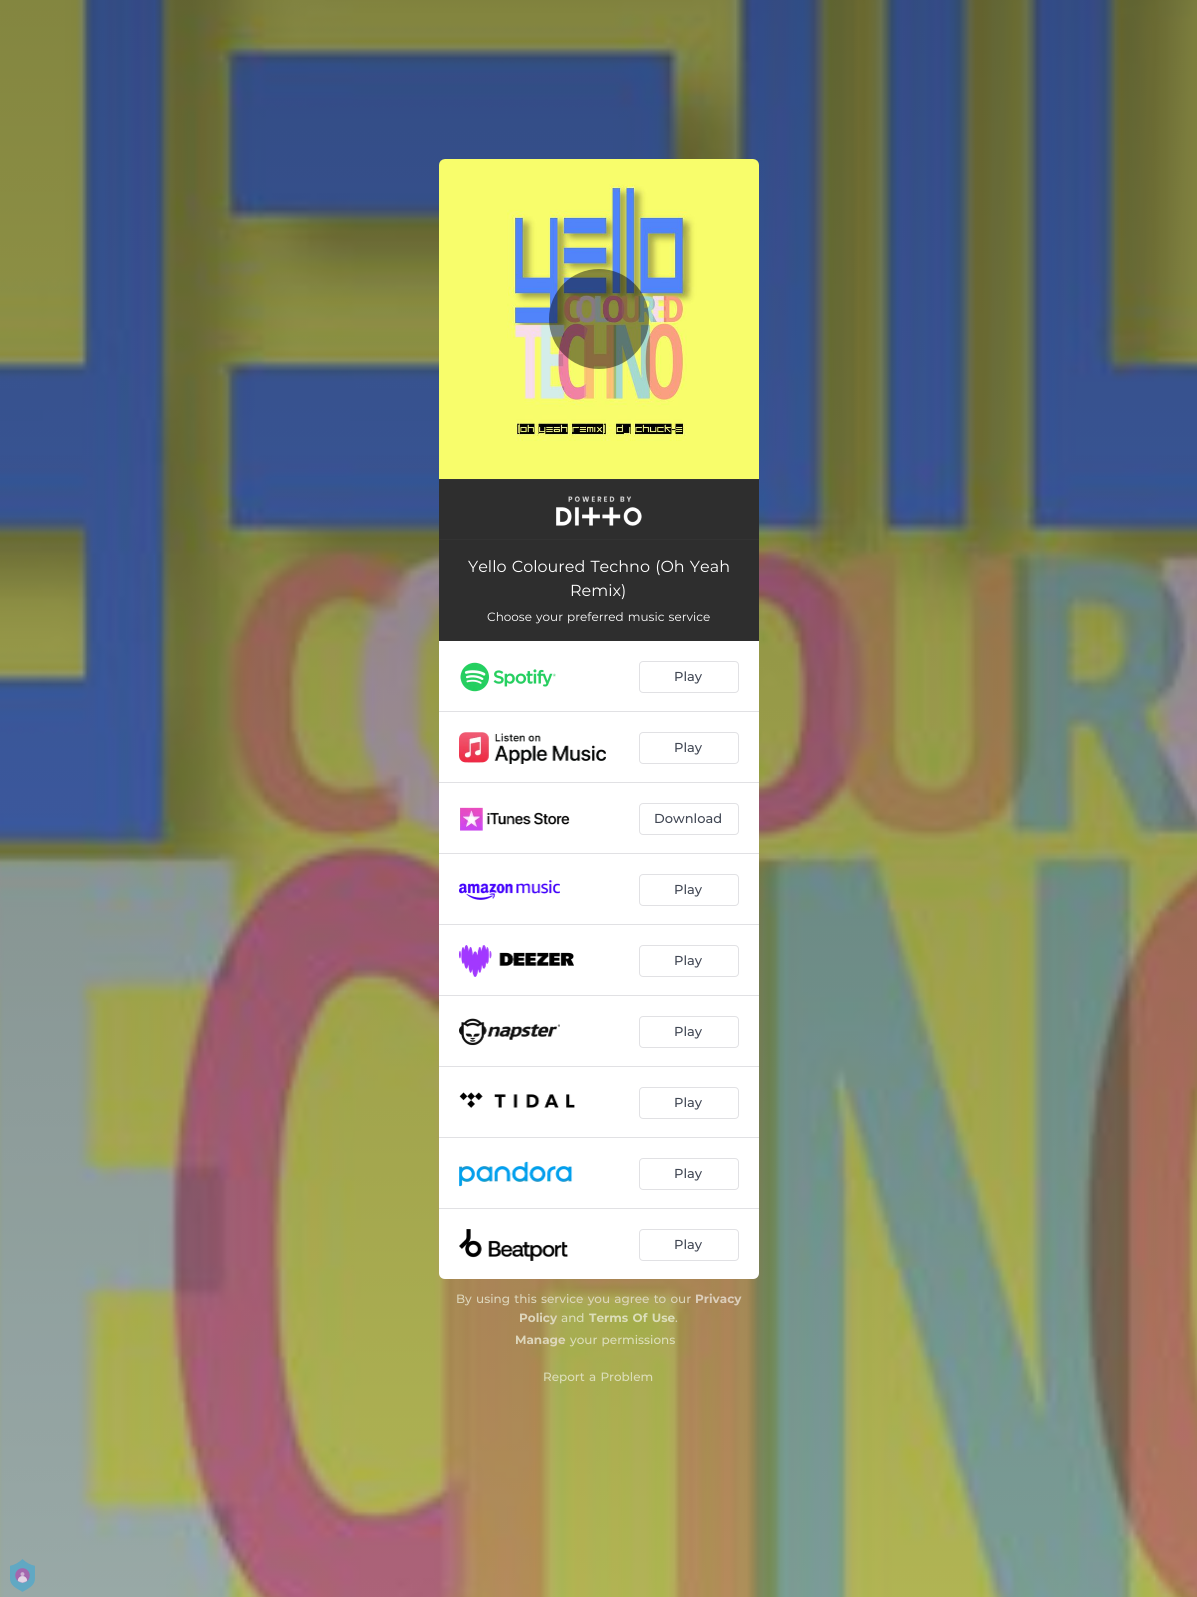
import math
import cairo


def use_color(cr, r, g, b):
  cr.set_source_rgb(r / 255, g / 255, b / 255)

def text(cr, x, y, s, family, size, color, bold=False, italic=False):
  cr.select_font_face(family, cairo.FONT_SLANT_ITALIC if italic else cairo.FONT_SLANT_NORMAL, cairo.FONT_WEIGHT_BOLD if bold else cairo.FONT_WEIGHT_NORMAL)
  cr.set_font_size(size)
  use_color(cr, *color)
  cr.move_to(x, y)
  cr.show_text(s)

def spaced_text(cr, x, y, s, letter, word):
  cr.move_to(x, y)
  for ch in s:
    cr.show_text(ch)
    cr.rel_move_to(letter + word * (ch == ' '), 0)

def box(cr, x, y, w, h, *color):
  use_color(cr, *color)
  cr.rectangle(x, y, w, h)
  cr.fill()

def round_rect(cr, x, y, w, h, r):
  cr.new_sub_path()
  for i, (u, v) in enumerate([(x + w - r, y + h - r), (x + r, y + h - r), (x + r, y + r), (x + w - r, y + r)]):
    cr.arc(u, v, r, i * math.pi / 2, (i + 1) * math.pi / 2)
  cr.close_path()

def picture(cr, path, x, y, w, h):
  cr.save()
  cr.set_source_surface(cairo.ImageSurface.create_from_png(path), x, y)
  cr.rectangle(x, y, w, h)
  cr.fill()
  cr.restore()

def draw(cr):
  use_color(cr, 255, 255, 255)
  cr.paint()
  picture(cr, "img_01.png", 0, 0, 1197, 1597)
  picture(cr, "img_02.png", 439, 159, 320, 320)
  cr.set_source_rgba(0, 0, 0, 0.45)
  cr.arc(599, 319, 50, 0, 2 * math.pi)
  cr.fill()
  box(cr, 439, 480, 320, 59, 46, 46, 46)
  box(cr, 439, 479, 320, 1, 51, 51, 51)
  box(cr, 439, 539, 320, 1, 51, 51, 51)
  picture(cr, "img_03.png", 556, 496, 86, 30)
  box(cr, 439, 540, 320, 101, 46, 46, 46)
  use_color(cr, 255, 255, 255)
  cr.new_path()
  cr.move_to(439, 641)
  cr.line_to(759, 641)
  cr.line_to(759, 1273)
  cr.curve_to(759, 1276.5, 756.5, 1279, 753, 1279)
  cr.line_to(445, 1279)
  cr.curve_to(441.5, 1279, 439, 1276.5, 439, 1273)
  cr.close_path()
  cr.fill()
  box(cr, 439, 711, 320, 1, 225, 225, 228)
  picture(cr, "img_04.png", 460, 662, 96, 30)
  round_rect(cr, 639.5, 661.5, 99, 31, 3.5)
  cr.set_line_width(1)
  cr.stroke()
  box(cr, 439, 782, 320, 1, 225, 225, 228)
  picture(cr, "img_05.png", 459, 732, 147, 32)
  round_rect(cr, 639.5, 732.5, 99, 31, 3.5)
  cr.stroke()
  box(cr, 439, 853, 320, 1, 225, 225, 228)
  picture(cr, "img_06.png", 460, 807, 110, 24)
  round_rect(cr, 639.5, 803.5, 99, 31, 3.5)
  cr.stroke()
  box(cr, 439, 924, 320, 1, 225, 225, 228)
  picture(cr, "img_07.png", 459, 880, 101, 20)
  round_rect(cr, 639.5, 874.5, 99, 31, 3.5)
  cr.stroke()
  box(cr, 439, 995, 320, 1, 225, 225, 228)
  picture(cr, "img_08.png", 459, 945, 115, 32)
  round_rect(cr, 639.5, 945.5, 99, 31, 3.5)
  cr.stroke()
  box(cr, 439, 1066, 320, 1, 225, 225, 228)
  picture(cr, "img_09.png", 459, 1018, 101, 28)
  round_rect(cr, 639.5, 1016.5, 99, 31, 3.5)
  cr.stroke()
  box(cr, 439, 1137, 320, 1, 225, 225, 228)
  picture(cr, "img_10.png", 459, 1092, 116, 16)
  round_rect(cr, 639.5, 1087.5, 99, 31, 3.5)
  cr.stroke()
  box(cr, 439, 1208, 320, 1, 225, 225, 228)
  picture(cr, "img_11.png", 459, 1161, 114, 26)
  round_rect(cr, 639.5, 1158.5, 99, 31, 3.5)
  cr.stroke()
  picture(cr, "img_12.png", 459, 1229, 110, 32)
  round_rect(cr, 639.5, 1229.5, 99, 31, 3.5)
  cr.stroke()
  picture(cr, "img_13.png", 10, 1559, 25, 33)
  cr.select_font_face("Montserrat")
  cr.set_font_size(16)
  use_color(cr, 255, 255, 255)
  spaced_text(cr, 468, 572, "Yello Coloured Techno (Oh Yeah", 0, 1)
  text(cr, 570, 596, "Remix)", "Montserrat", 16, (255, 255, 255))
  cr.set_font_size(12)
  spaced_text(cr, 487, 621, "Choose your preferred music service", 0, 1)
  text(cr, 674, 681, "Play", "Montserrat Medium", 13, (65, 71, 84))
  text(cr, 674, 752, "Play", "Montserrat Medium", 13, (65, 71, 84))
  text(cr, 654, 823, "Download", "Montserrat Medium", 13, (65, 71, 84))
  text(cr, 674, 894, "Play", "Montserrat Medium", 13, (65, 71, 84))
  text(cr, 674, 965, "Play", "Montserrat Medium", 13, (65, 71, 84))
  text(cr, 674, 1036, "Play", "Montserrat Medium", 13, (65, 71, 84))
  text(cr, 674, 1107, "Play", "Montserrat Medium", 13, (65, 71, 84))
  text(cr, 674, 1178, "Play", "Montserrat Medium", 13, (65, 71, 84))
  text(cr, 674, 1249, "Play", "Montserrat Medium", 13, (65, 71, 84))
  cr.set_font_size(12)
  use_color(cr, 221, 214, 187)
  spaced_text(cr, 456, 1303, "By using this service you agree to our", 0, 1)
  text(cr, 695, 1303, "Privacy", "Montserrat", 12, (220, 206, 187), bold=True)
  text(cr, 519, 1322, "Policy", "Montserrat", 12, (221, 214, 187), bold=True)
  text(cr, 561, 1322, "and", "Montserrat Medium", 12, (220, 222, 186))
  cr.select_font_face("Montserrat", cairo.FONT_SLANT_NORMAL, cairo.FONT_WEIGHT_BOLD)
  spaced_text(cr, 589, 1322, "Terms Of Use", 0, 1)
  text(cr, 675, 1322, ".", "Montserrat Medium", 12, (221, 214, 187))
  text(cr, 515, 1344, "Manage", "Montserrat", 12, (221, 214, 187), bold=True)
  cr.select_font_face("Montserrat Medium")
  use_color(cr, 220, 222, 186)
  spaced_text(cr, 570, 1344, "your permissions", 0, 1)
  spaced_text(cr, 543, 1381, "Report a Problem", 0, 1)


surface = cairo.ImageSurface(cairo.FORMAT_RGB24, 1197, 1597)
cr = cairo.Context(surface)
options = cairo.FontOptions()
options.set_hint_metrics(cairo.HINT_METRICS_OFF)
options.set_hint_style(cairo.HINT_STYLE_NONE)
cr.set_font_options(options)
cr.set_miter_limit(4)
draw(cr)
surface.write_to_png("out.png")
